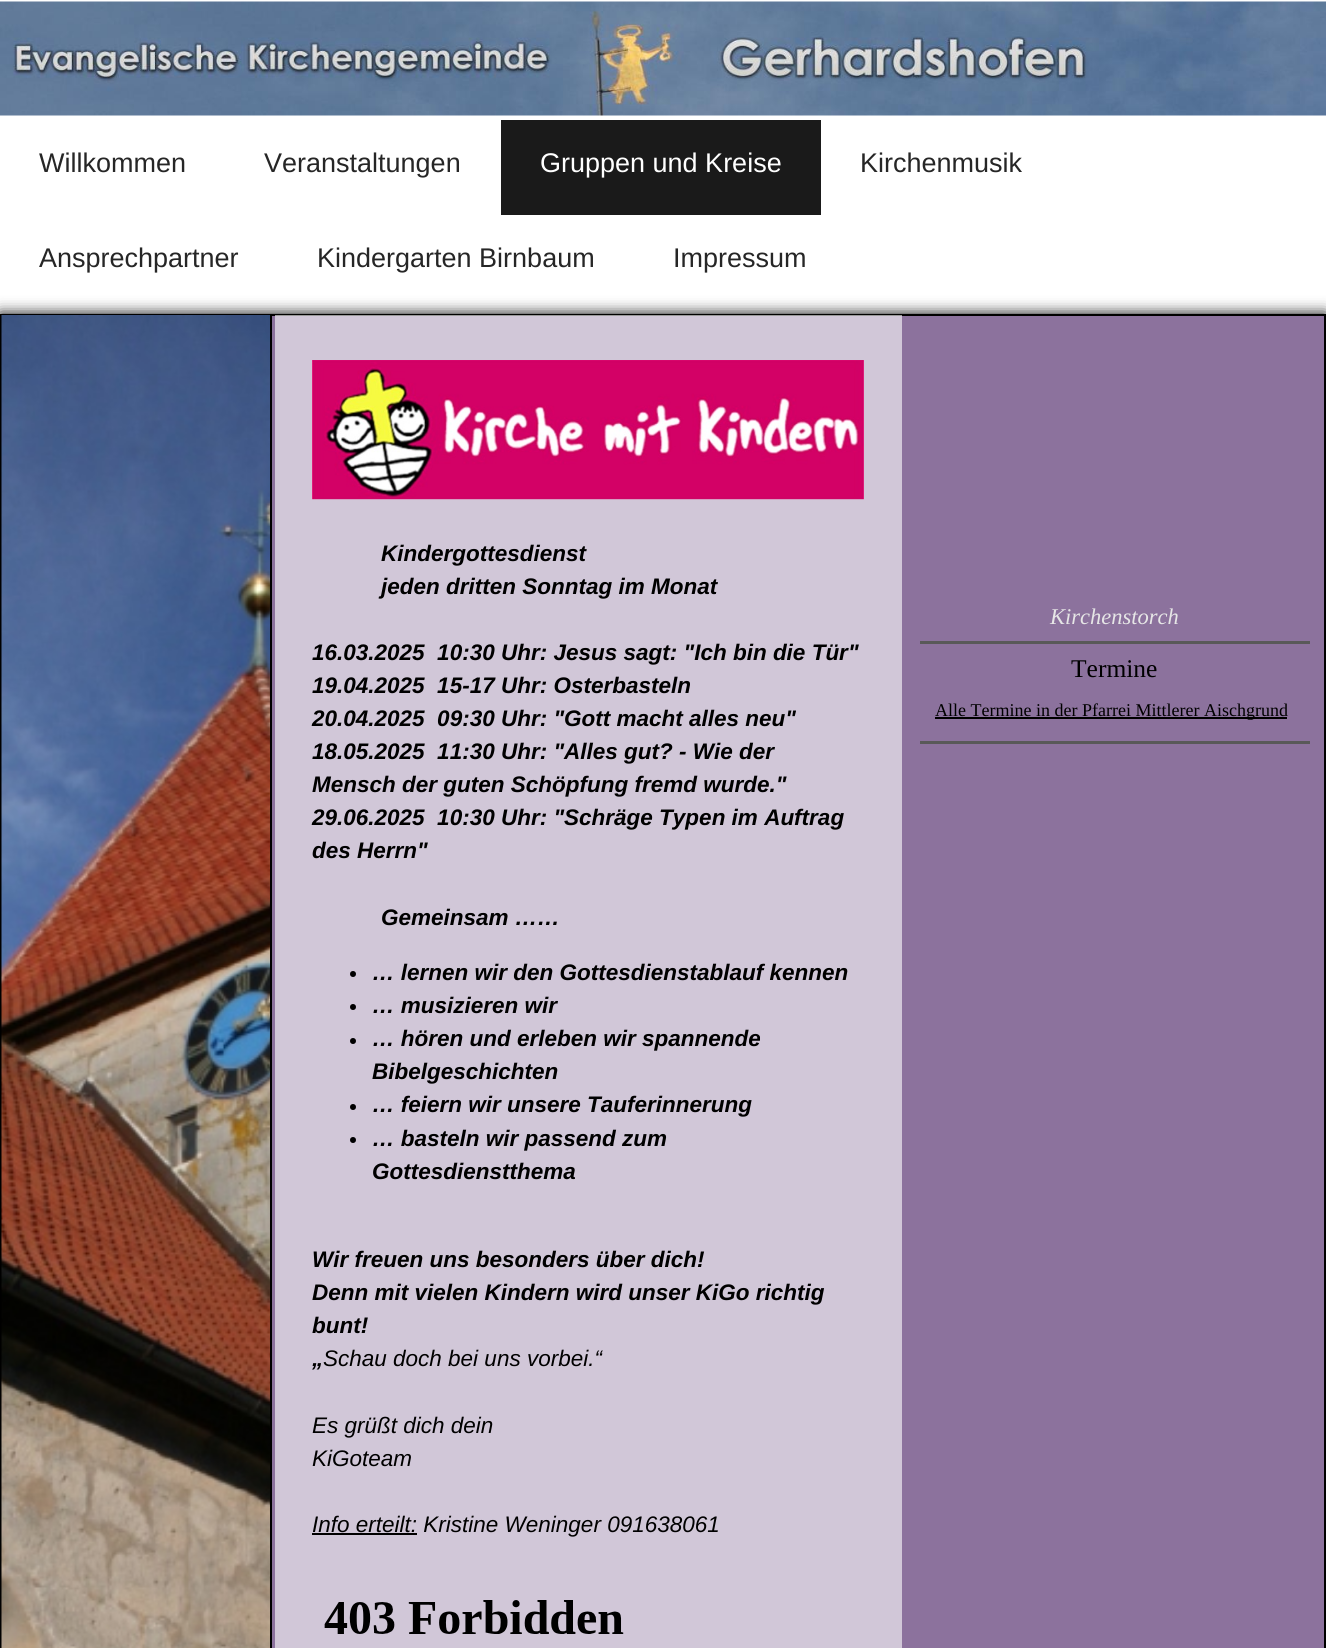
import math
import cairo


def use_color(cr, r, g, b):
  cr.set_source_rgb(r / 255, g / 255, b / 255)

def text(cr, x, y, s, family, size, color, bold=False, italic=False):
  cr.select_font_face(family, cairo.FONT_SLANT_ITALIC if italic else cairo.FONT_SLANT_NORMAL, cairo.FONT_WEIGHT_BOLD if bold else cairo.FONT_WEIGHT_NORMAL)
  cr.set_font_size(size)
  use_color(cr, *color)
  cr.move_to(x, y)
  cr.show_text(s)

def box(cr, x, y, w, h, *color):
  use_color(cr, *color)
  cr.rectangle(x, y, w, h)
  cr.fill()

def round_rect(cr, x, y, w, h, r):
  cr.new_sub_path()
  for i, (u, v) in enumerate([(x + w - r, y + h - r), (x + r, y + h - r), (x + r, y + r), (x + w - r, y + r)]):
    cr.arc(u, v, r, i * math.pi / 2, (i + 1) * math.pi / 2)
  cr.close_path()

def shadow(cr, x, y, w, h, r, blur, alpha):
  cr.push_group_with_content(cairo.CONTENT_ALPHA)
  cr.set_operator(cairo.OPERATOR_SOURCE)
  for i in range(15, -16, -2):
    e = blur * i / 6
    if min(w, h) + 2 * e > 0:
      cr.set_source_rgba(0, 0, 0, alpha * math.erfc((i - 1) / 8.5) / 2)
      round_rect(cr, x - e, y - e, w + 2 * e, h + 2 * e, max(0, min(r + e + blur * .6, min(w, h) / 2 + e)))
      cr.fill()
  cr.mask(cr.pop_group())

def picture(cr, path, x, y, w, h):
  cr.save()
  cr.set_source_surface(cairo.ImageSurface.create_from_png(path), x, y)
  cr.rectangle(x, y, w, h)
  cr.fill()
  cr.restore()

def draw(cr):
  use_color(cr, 255, 255, 255)
  cr.paint()
  picture(cr, "img_01.png", 0, 1, 1326, 115)
  box(cr, 501, 120, 320, 95, 26, 26, 26)
  use_color(cr, 0, 0, 0)
  shadow(cr, 0, 314, 1326, 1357, 0, 7.5, 1)
  box(cr, 272, 316, 1052, 1332, 140, 114, 157)
  cr.rectangle(1, 315, 1324, 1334)
  use_color(cr, 0, 0, 0)
  cr.stroke()
  picture(cr, "img_02.png", 1, 315, 269, 1333)
  box(cr, 270, 315, 2, 16, 0, 0, 0)
  cr.set_source_rgba(1, 1, 1, 0.6)
  cr.rectangle(275, 315, 627, 1333)
  cr.fill()
  picture(cr, "img_03.png", 312, 360, 552, 140)
  use_color(cr, 0, 0, 0)
  cr.arc(353, 974, 3, 0, 2 * math.pi)
  cr.fill()
  cr.arc(353, 1007, 3, 0, 2 * math.pi)
  cr.fill()
  cr.arc(353, 1041, 3, 0, 2 * math.pi)
  cr.fill()
  cr.arc(353, 1107, 3, 0, 2 * math.pi)
  cr.fill()
  cr.arc(353, 1140, 3, 0, 2 * math.pi)
  cr.fill()
  box(cr, 312, 1533, 105, 2, 0, 0, 0)
  picture(cr, "img_04.png", 324, 1600, 300, 34)
  box(cr, 920, 641, 390, 3, 89, 89, 89)
  box(cr, 935, 717, 352, 2, 0, 0, 0)
  box(cr, 920, 741, 390, 3, 89, 89, 89)
  text(cr, 39, 172, "Willkommen", "Liberation Sans", 27, (38, 38, 38))
  text(cr, 264, 172, "Veranstaltungen", "Liberation Sans", 27, (38, 38, 38))
  text(cr, 540, 172, "Gruppen und Kreise", "Liberation Sans", 27, (255, 255, 255))
  text(cr, 860, 172, "Kirchenmusik", "Liberation Sans", 27, (38, 38, 38))
  text(cr, 39, 267, "Ansprechpartner", "Liberation Sans", 27, (38, 38, 38))
  text(cr, 317, 267, "Kindergarten Birnbaum", "Liberation Sans", 27, (38, 38, 38))
  text(cr, 673, 267, "Impressum", "Liberation Sans", 27, (38, 38, 38))
  text(cr, 381, 561, "Kindergottesdienst", "Liberation Sans", 22.5, (0, 0, 0), bold=True, italic=True)
  text(cr, 381, 594, "jeden dritten Sonntag im Monat", "Liberation Sans", 22.5, (0, 0, 0), bold=True, italic=True)
  text(cr, 312, 660, "16.03.2025  10:30 Uhr: Jesus sagt: \"Ich bin die Tür\"", "Liberation Sans", 22.5, (0, 0, 0), bold=True, italic=True)
  text(cr, 312, 693, "19.04.2025  15-17 Uhr: Osterbasteln", "Liberation Sans", 22.5, (0, 0, 0), bold=True, italic=True)
  text(cr, 312, 726, "20.04.2025  09:30 Uhr: \"Gott macht alles neu\"", "Liberation Sans", 22.5, (0, 0, 0), bold=True, italic=True)
  text(cr, 312, 759, "18.05.2025  11:30 Uhr: \"Alles gut? - Wie der", "Liberation Sans", 22.5, (0, 0, 0), bold=True, italic=True)
  text(cr, 312, 792, "Mensch der guten Schöpfung fremd wurde.\"", "Liberation Sans", 22.5, (0, 0, 0), bold=True, italic=True)
  text(cr, 312, 825, "29.06.2025  10:30 Uhr: \"Schräge Typen im Auftrag", "Liberation Sans", 22.5, (0, 0, 0), bold=True, italic=True)
  text(cr, 312, 858, "des Herrn\"", "Liberation Sans", 22.5, (0, 0, 0), bold=True, italic=True)
  text(cr, 381, 925, "Gemeinsam ……", "Liberation Sans", 22.5, (0, 0, 0), bold=True, italic=True)
  text(cr, 372, 980, "… lernen wir den Gottesdienstablauf kennen", "Liberation Sans", 22.5, (0, 0, 0), bold=True, italic=True)
  text(cr, 372, 1013, "… musizieren wir", "Liberation Sans", 22.5, (0, 0, 0), bold=True, italic=True)
  text(cr, 372, 1046, "… hören und erleben wir spannende", "Liberation Sans", 22.5, (0, 0, 0), bold=True, italic=True)
  text(cr, 372, 1079, "Bibelgeschichten", "Liberation Sans", 22.5, (0, 0, 0), bold=True, italic=True)
  text(cr, 372, 1112, "… feiern wir unsere Tauferinnerung", "Liberation Sans", 22.5, (0, 0, 0), bold=True, italic=True)
  text(cr, 372, 1146, "… basteln wir passend zum", "Liberation Sans", 22.5, (0, 0, 0), bold=True, italic=True)
  text(cr, 372, 1179, "Gottesdienstthema", "Liberation Sans", 22.5, (0, 0, 0), bold=True, italic=True)
  text(cr, 312, 1267, "Wir freuen uns besonders über dich!", "Liberation Sans", 22.5, (0, 0, 0), bold=True, italic=True)
  text(cr, 312, 1300, "Denn mit vielen Kindern wird unser KiGo richtig", "Liberation Sans", 22.5, (0, 0, 0), bold=True, italic=True)
  text(cr, 312, 1333, "bunt!", "Liberation Sans", 22.5, (0, 0, 0), bold=True, italic=True)
  text(cr, 312, 1366, "„", "Liberation Sans", 22.5, (0, 0, 0), bold=True, italic=True)
  text(cr, 323, 1366, "Schau doch bei uns vorbei.“", "Liberation Sans", 22.5, (0, 0, 0), italic=True)
  text(cr, 312, 1433, "Es grüßt dich dein", "Liberation Sans", 22.5, (0, 0, 0), italic=True)
  text(cr, 312, 1466, "KiGoteam", "Liberation Sans", 22.5, (0, 0, 0), italic=True)
  text(cr, 312, 1532, "Info erteilt: Kristine Weninger 091638061", "Liberation Sans", 22.5, (0, 0, 0), italic=True)
  text(cr, 1050, 624, "Kirchenstorch", "Liberation Serif", 22.5, (230, 230, 230), italic=True)
  text(cr, 1071, 677, "Termine", "Liberation Serif", 25.5, (0, 0, 0))
  text(cr, 935, 716, "Alle Termine in der Pfarrei Mittlerer Aischgrund", "Liberation Serif", 18, (0, 0, 0))


surface = cairo.ImageSurface(cairo.FORMAT_RGB24, 1326, 1648)
cr = cairo.Context(surface)
options = cairo.FontOptions()
options.set_hint_metrics(cairo.HINT_METRICS_OFF)
options.set_hint_style(cairo.HINT_STYLE_NONE)
cr.set_font_options(options)
cr.set_miter_limit(4)
draw(cr)
surface.write_to_png("out.png")
